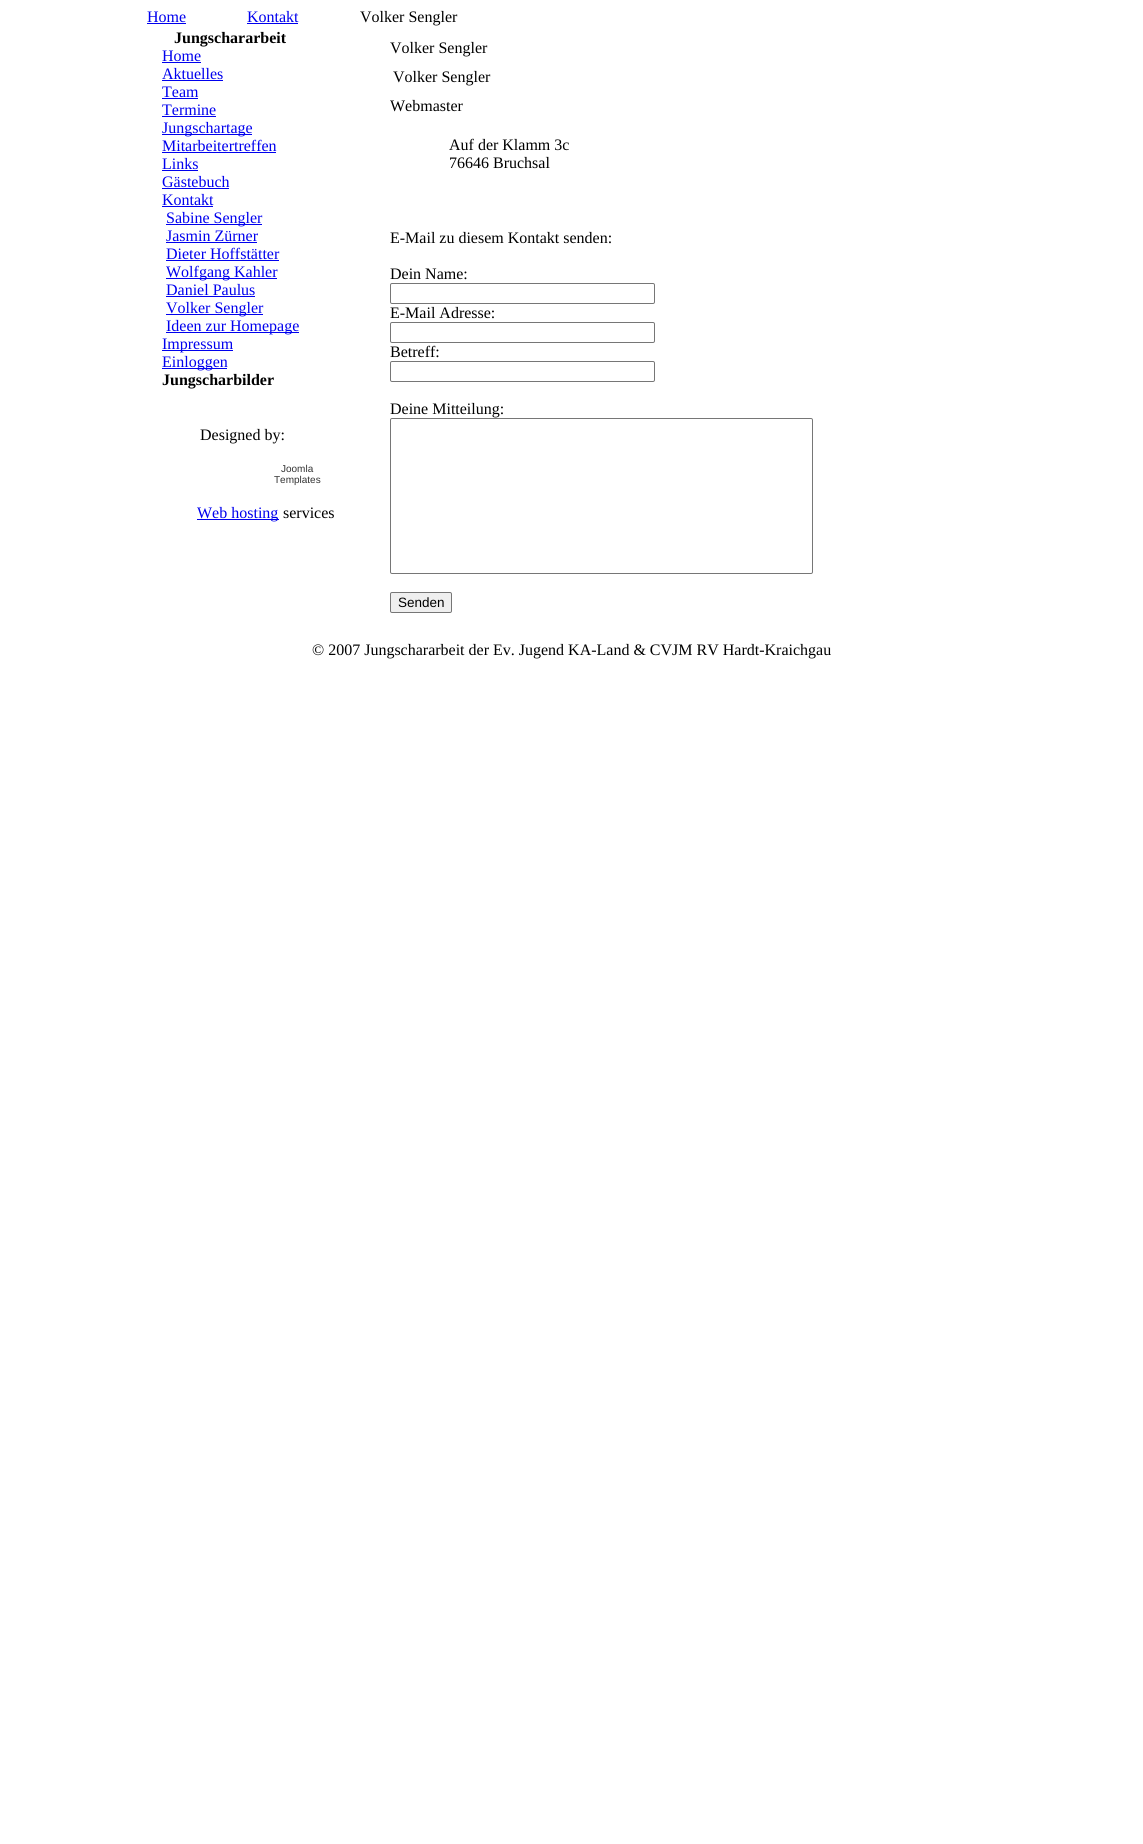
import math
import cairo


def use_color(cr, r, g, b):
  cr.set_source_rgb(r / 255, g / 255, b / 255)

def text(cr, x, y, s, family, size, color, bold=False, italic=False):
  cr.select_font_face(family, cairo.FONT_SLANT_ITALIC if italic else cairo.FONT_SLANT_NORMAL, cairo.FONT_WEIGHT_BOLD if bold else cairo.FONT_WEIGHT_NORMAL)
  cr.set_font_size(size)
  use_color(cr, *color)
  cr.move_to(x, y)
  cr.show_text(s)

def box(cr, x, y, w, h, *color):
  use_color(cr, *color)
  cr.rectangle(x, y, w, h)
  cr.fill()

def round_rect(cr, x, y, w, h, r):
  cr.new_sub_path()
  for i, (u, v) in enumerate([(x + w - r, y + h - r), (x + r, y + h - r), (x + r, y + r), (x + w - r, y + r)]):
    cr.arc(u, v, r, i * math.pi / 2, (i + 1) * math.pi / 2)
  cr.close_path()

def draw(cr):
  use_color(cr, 255, 255, 255)
  cr.paint()
  box(cr, 147, 23, 39, 1, 0, 0, 238)
  box(cr, 247, 23, 51, 1, 0, 0, 238)
  box(cr, 162, 62, 39, 1, 0, 0, 238)
  box(cr, 162, 80, 61, 1, 0, 0, 238)
  box(cr, 162, 98, 36, 1, 0, 0, 238)
  box(cr, 162, 116, 54, 1, 0, 0, 238)
  box(cr, 162, 134, 90, 1, 0, 0, 238)
  box(cr, 162, 152, 114, 1, 0, 0, 238)
  box(cr, 162, 170, 36, 1, 0, 0, 238)
  box(cr, 162, 188, 67, 1, 0, 0, 238)
  box(cr, 162, 206, 51, 1, 0, 0, 238)
  box(cr, 166, 224, 96, 1, 0, 0, 238)
  box(cr, 166, 242, 91, 1, 0, 0, 238)
  box(cr, 166, 260, 113, 1, 0, 0, 238)
  box(cr, 166, 278, 111, 1, 0, 0, 238)
  box(cr, 166, 296, 89, 1, 0, 0, 238)
  box(cr, 166, 314, 97, 1, 0, 0, 238)
  box(cr, 166, 332, 133, 1, 0, 0, 238)
  box(cr, 162, 350, 71, 1, 0, 0, 238)
  box(cr, 162, 368, 65, 1, 0, 0, 238)
  box(cr, 197, 519, 82, 1, 0, 0, 238)
  round_rect(cr, 390.5, 283.5, 264, 20, 1.5)
  use_color(cr, 118, 118, 118)
  cr.set_line_width(1)
  cr.stroke()
  round_rect(cr, 390.5, 322.5, 264, 20, 1.5)
  cr.stroke()
  round_rect(cr, 390.5, 361.5, 264, 20, 1.5)
  cr.stroke()
  round_rect(cr, 390.5, 418.5, 422, 155, 1.5)
  cr.stroke()
  use_color(cr, 239, 239, 239)
  round_rect(cr, 390.5, 592.5, 61, 20, 1.5)
  cr.fill_preserve()
  use_color(cr, 118, 118, 118)
  cr.stroke()
  text(cr, 147, 22, "Home", "Liberation Serif", 16, (0, 0, 238))
  text(cr, 247, 22, "Kontakt", "Liberation Serif", 16, (0, 0, 238))
  text(cr, 360, 22, "Volker Sengler", "Liberation Serif", 16, (0, 0, 0))
  text(cr, 174, 43, "Jungschararbeit", "Liberation Serif", 16, (0, 0, 0), bold=True)
  text(cr, 162, 61, "Home", "Liberation Serif", 16, (0, 0, 238))
  text(cr, 162, 79, "Aktuelles", "Liberation Serif", 16, (0, 0, 238))
  text(cr, 162, 97, "Team", "Liberation Serif", 16, (0, 0, 238))
  text(cr, 162, 115, "Termine", "Liberation Serif", 16, (0, 0, 238))
  text(cr, 162, 133, "Jungschartage", "Liberation Serif", 16, (0, 0, 238))
  text(cr, 162, 151, "Mitarbeitertreffen", "Liberation Serif", 16, (0, 0, 238))
  text(cr, 162, 169, "Links", "Liberation Serif", 16, (0, 0, 238))
  text(cr, 162, 187, "Gästebuch", "Liberation Serif", 16, (0, 0, 238))
  text(cr, 162, 205, "Kontakt", "Liberation Serif", 16, (0, 0, 238))
  text(cr, 166, 223, "Sabine Sengler", "Liberation Serif", 16, (0, 0, 238))
  text(cr, 166, 241, "Jasmin Zürner", "Liberation Serif", 16, (0, 0, 238))
  text(cr, 166, 259, "Dieter Hoffstätter", "Liberation Serif", 16, (0, 0, 238))
  text(cr, 166, 277, "Wolfgang Kahler", "Liberation Serif", 16, (0, 0, 238))
  text(cr, 166, 295, "Daniel Paulus", "Liberation Serif", 16, (0, 0, 238))
  text(cr, 166, 313, "Volker Sengler", "Liberation Serif", 16, (0, 0, 238))
  text(cr, 166, 331, "Ideen zur Homepage", "Liberation Serif", 16, (0, 0, 238))
  text(cr, 162, 349, "Impressum", "Liberation Serif", 16, (0, 0, 238))
  text(cr, 162, 367, "Einloggen", "Liberation Serif", 16, (0, 0, 238))
  text(cr, 162, 385, "Jungscharbilder", "Liberation Serif", 16, (0, 0, 0), bold=True)
  text(cr, 200, 440, "Designed by:", "Liberation Serif", 16, (0, 0, 0))
  text(cr, 281, 472, "Joomla", "Liberation Sans", 10, (51, 51, 51))
  text(cr, 274, 483, "Templates", "Liberation Sans", 10, (51, 51, 51))
  text(cr, 197, 518, "Web hosting", "Liberation Serif", 16, (0, 0, 238))
  text(cr, 283, 518, "services", "Liberation Serif", 16, (0, 0, 0))
  text(cr, 390, 53, "Volker Sengler", "Liberation Serif", 16, (0, 0, 0))
  text(cr, 393, 82, "Volker Sengler", "Liberation Serif", 16, (0, 0, 0))
  text(cr, 390, 111, "Webmaster", "Liberation Serif", 16, (0, 0, 0))
  text(cr, 449, 150, "Auf der Klamm 3c", "Liberation Serif", 16, (0, 0, 0))
  text(cr, 449, 168, "76646 Bruchsal", "Liberation Serif", 16, (0, 0, 0))
  text(cr, 390, 243, "E-Mail zu diesem Kontakt senden:", "Liberation Serif", 16, (0, 0, 0))
  text(cr, 390, 279, "Dein Name:", "Liberation Serif", 16, (0, 0, 0))
  text(cr, 390, 318, "E-Mail Adresse:", "Liberation Serif", 16, (0, 0, 0))
  text(cr, 390, 357, "Betreff:", "Liberation Serif", 16, (0, 0, 0))
  text(cr, 390, 414, "Deine Mitteilung:", "Liberation Serif", 16, (0, 0, 0))
  text(cr, 398, 607, "Senden", "Liberation Sans", 13.5, (0, 0, 0))
  text(cr, 312, 655, "© 2007 Jungschararbeit der Ev. Jugend KA-Land & CVJM RV Hardt-Kraichgau", "Liberation Serif", 16, (0, 0, 0))


surface = cairo.ImageSurface(cairo.FORMAT_RGB24, 1143, 1844)
cr = cairo.Context(surface)
options = cairo.FontOptions()
options.set_hint_metrics(cairo.HINT_METRICS_OFF)
options.set_hint_style(cairo.HINT_STYLE_NONE)
cr.set_font_options(options)
cr.set_miter_limit(4)
draw(cr)
surface.write_to_png("out.png")
